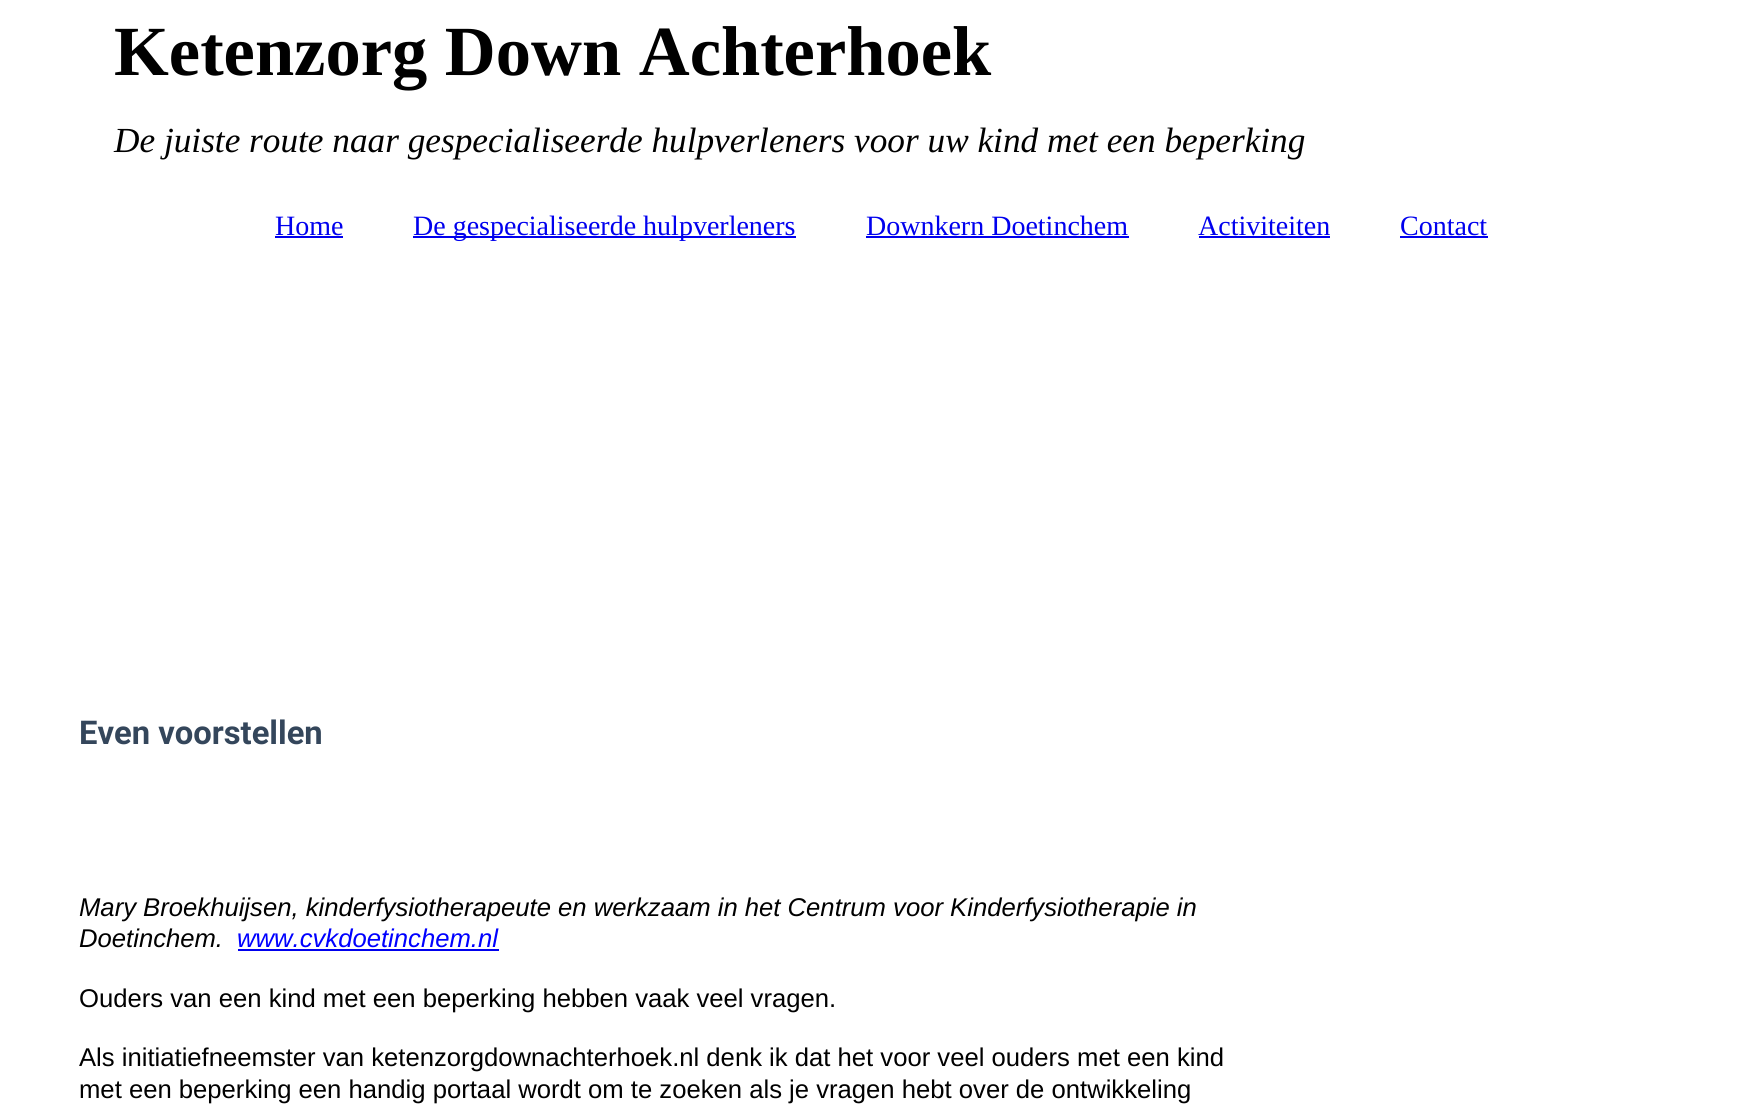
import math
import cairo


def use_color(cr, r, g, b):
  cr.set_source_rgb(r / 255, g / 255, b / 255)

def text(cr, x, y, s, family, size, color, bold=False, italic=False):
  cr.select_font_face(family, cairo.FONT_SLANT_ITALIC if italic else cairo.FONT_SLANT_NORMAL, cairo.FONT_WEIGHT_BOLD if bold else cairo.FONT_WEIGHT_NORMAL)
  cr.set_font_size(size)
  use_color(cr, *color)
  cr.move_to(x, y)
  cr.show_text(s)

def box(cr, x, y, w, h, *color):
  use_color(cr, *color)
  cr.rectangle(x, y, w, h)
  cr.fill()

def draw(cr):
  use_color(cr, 255, 255, 255)
  cr.paint()
  box(cr, 275, 236, 68, 2, 0, 0, 238)
  box(cr, 413, 236, 383, 2, 0, 0, 238)
  box(cr, 866, 236, 263, 2, 0, 0, 238)
  box(cr, 1199, 236, 131, 2, 0, 0, 238)
  box(cr, 1400, 236, 88, 2, 0, 0, 238)
  box(cr, 238, 949, 261, 2, 0, 0, 238)
  text(cr, 114, 75, "Ketenzorg Down Achterhoek", "Liberation Serif", 70.5, (0, 0, 0), bold=True)
  text(cr, 114, 152, "De juiste route naar gespecialiseerde hulpverleners voor uw kind met een beperking", "Liberation Serif", 35.25, (0, 0, 0), italic=True)
  text(cr, 275, 235, "Home", "Liberation Serif", 28, (0, 0, 238))
  text(cr, 413, 235, "De gespecialiseerde hulpverleners", "Liberation Serif", 28, (0, 0, 238))
  text(cr, 866, 235, "Downkern Doetinchem", "Liberation Serif", 28, (0, 0, 238))
  text(cr, 1198, 235, "Activiteiten", "Liberation Serif", 28, (0, 0, 238))
  text(cr, 1400, 235, "Contact", "Liberation Serif", 28, (0, 0, 238))
  text(cr, 79, 744, "Even voorstellen", "Roboto", 32.75, (52, 70, 91), bold=True)
  text(cr, 79, 916, "Mary Broekhuijsen, kinderfysiotherapeute en werkzaam in het Centrum voor Kinderfysiotherapie in", "Liberation Sans", 25.65, (0, 0, 0), italic=True)
  text(cr, 79, 947, "Doetinchem.", "Liberation Sans", 25.65, (0, 0, 0), italic=True)
  text(cr, 237, 947, "www.cvkdoetinchem.nl", "Liberation Sans", 25.65, (0, 0, 255), italic=True)
  text(cr, 79, 1007, "Ouders van een kind met een beperking hebben vaak veel vragen.", "Liberation Sans", 25.65, (0, 0, 0))
  text(cr, 79, 1066, "Als initiatiefneemster van ketenzorgdownachterhoek.nl denk ik dat het voor veel ouders met een kind", "Liberation Sans", 25.65, (0, 0, 0))
  text(cr, 79, 1098, "met een beperking een handig portaal wordt om te zoeken als je vragen hebt over de ontwikkeling", "Liberation Sans", 25.65, (0, 0, 0))


surface = cairo.ImageSurface(cairo.FORMAT_RGB24, 1762, 1106)
cr = cairo.Context(surface)
options = cairo.FontOptions()
options.set_hint_metrics(cairo.HINT_METRICS_OFF)
options.set_hint_style(cairo.HINT_STYLE_NONE)
cr.set_font_options(options)
cr.set_miter_limit(4)
draw(cr)
surface.write_to_png("out.png")
